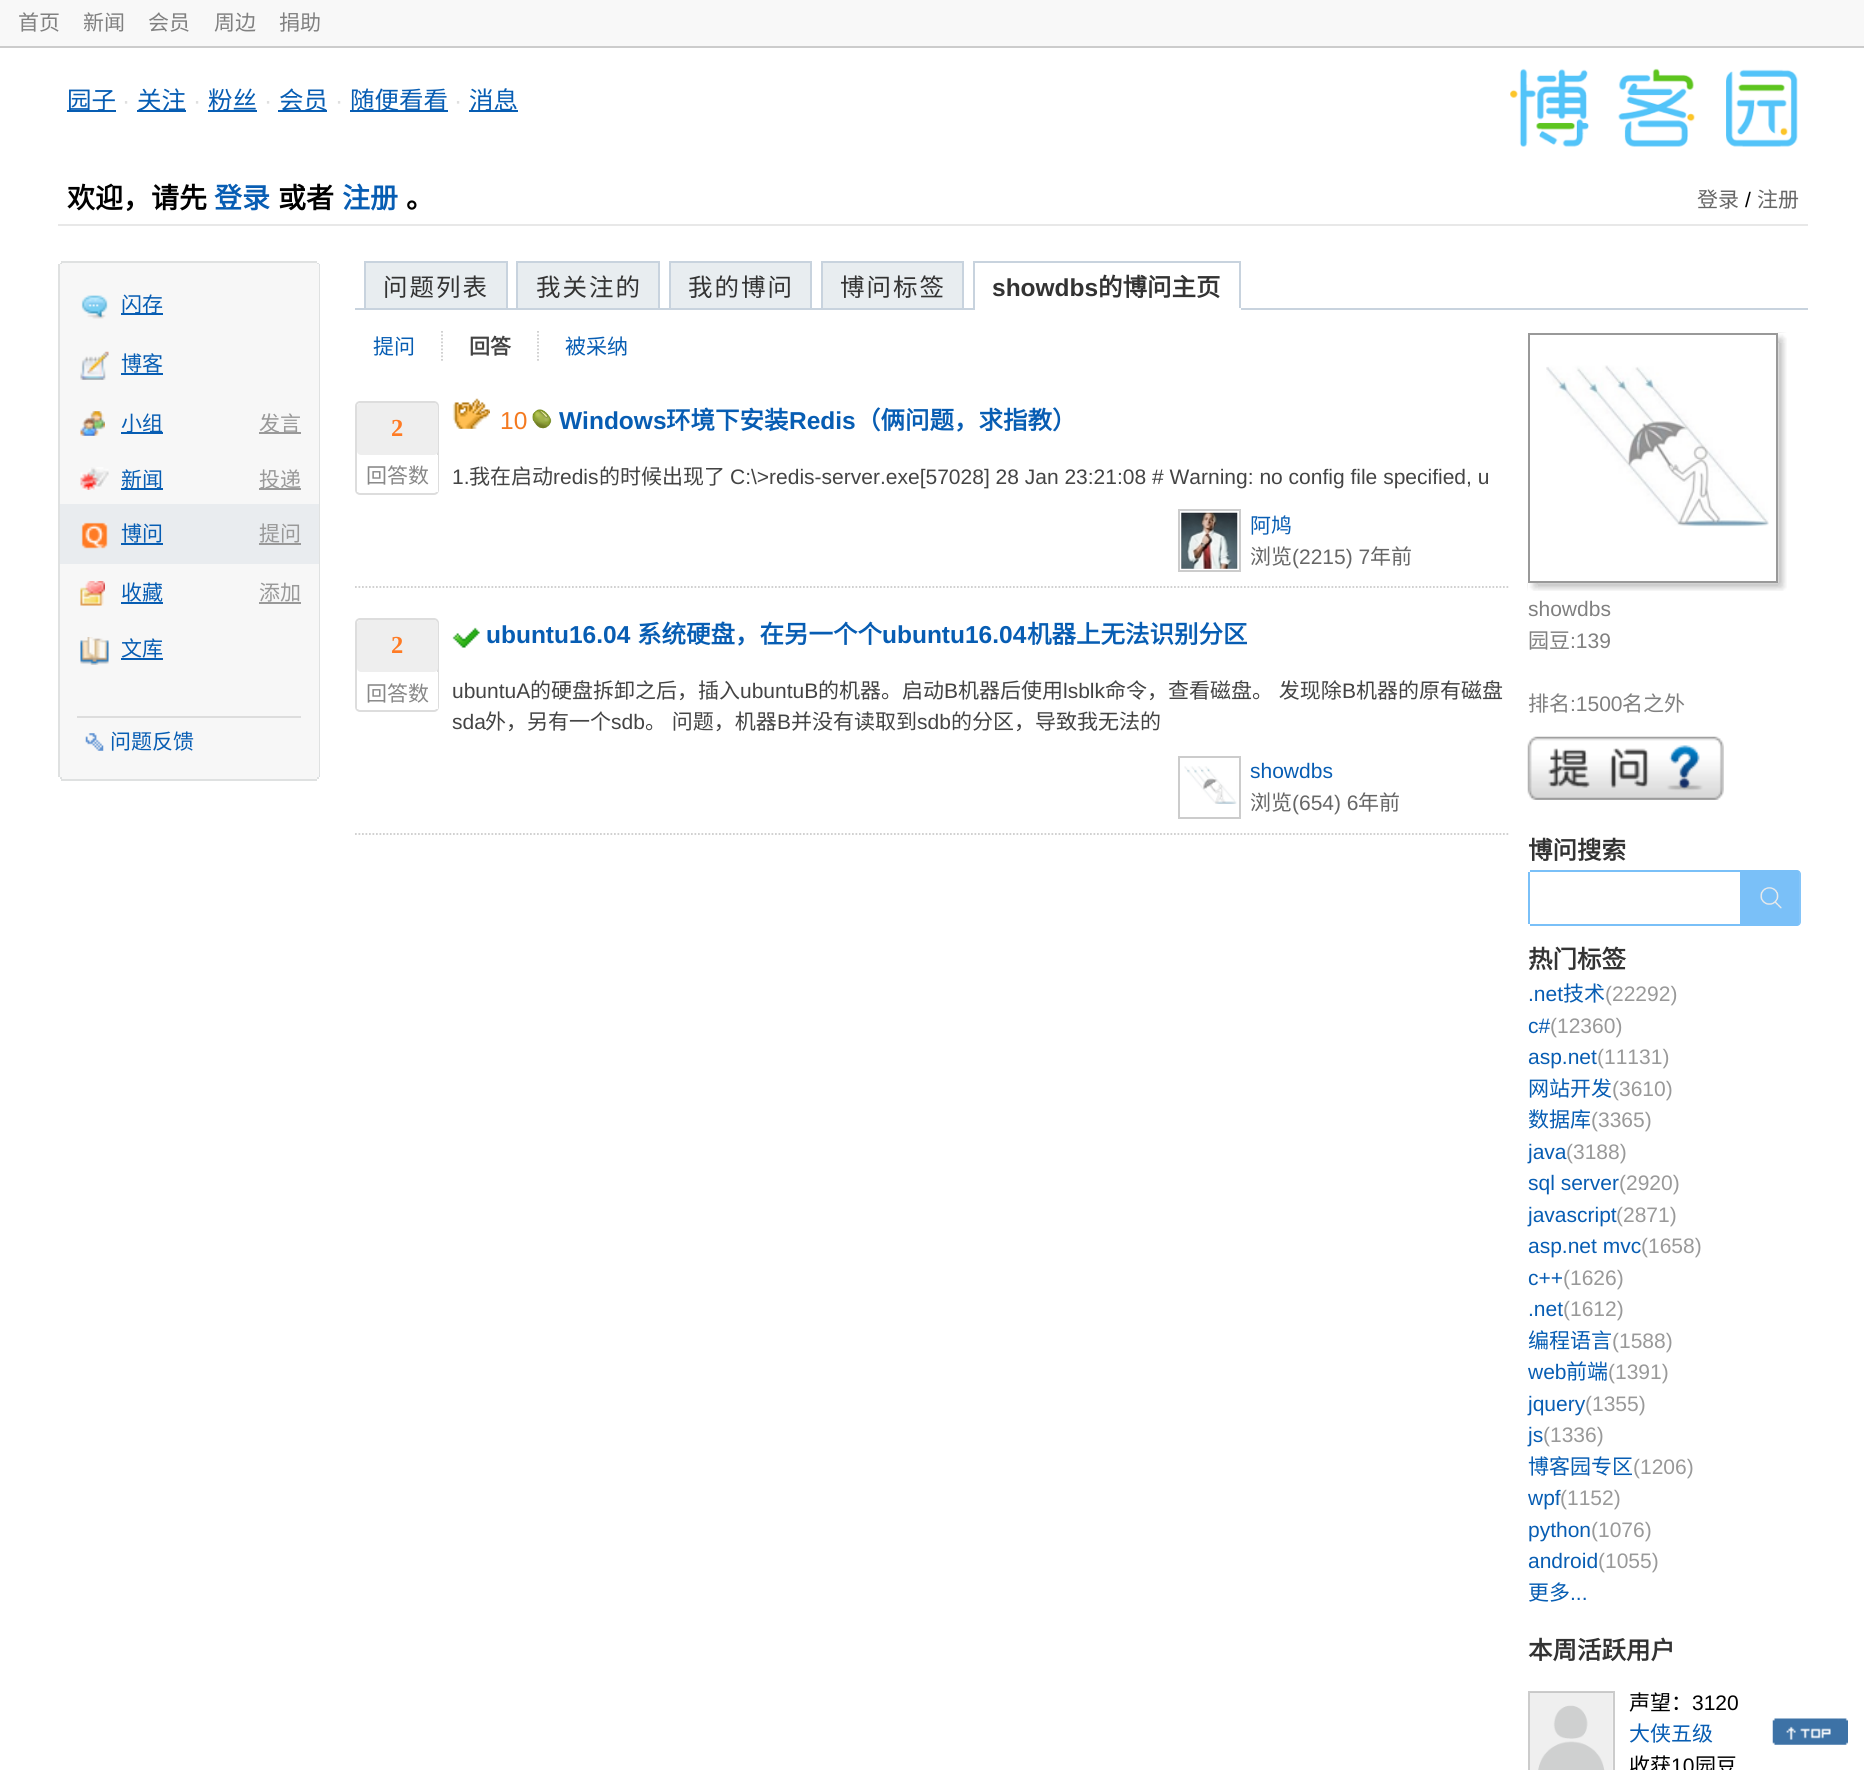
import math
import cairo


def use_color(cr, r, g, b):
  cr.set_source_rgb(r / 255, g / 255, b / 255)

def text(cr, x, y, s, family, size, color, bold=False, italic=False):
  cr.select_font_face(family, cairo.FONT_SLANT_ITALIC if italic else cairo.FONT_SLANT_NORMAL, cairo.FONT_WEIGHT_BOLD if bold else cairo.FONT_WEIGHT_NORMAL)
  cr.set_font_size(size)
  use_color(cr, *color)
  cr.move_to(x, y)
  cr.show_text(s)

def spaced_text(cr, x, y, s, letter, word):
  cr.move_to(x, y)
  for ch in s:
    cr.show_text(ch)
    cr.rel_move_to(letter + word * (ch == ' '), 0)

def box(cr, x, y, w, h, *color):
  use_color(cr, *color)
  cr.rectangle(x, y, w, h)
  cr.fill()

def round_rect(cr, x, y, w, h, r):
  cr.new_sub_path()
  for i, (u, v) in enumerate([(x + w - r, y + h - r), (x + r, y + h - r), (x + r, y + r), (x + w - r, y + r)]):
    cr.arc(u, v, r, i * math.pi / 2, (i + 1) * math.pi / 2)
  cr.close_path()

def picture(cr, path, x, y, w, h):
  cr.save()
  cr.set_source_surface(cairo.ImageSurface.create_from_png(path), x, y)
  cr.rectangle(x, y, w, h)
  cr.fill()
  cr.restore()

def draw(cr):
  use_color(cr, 255, 255, 255)
  cr.paint()
  box(cr, 0, 0, 1864, 46, 248, 248, 248)
  box(cr, 0, 46, 1864, 2, 204, 204, 204)
  box(cr, 58, 224, 1750, 2, 232, 232, 232)
  box(cr, 67, 110, 49, 2, 7, 93, 179)
  box(cr, 137, 110, 49, 2, 7, 93, 179)
  box(cr, 208, 110, 49, 2, 7, 93, 179)
  box(cr, 278, 110, 49, 2, 7, 93, 179)
  box(cr, 350, 110, 98, 2, 7, 93, 179)
  box(cr, 469, 110, 49, 2, 7, 93, 179)
  picture(cr, "img_01.png", 1510, 68, 288, 79)
  box(cr, 61, 261, 256, 2, 223, 225, 225)
  box(cr, 60, 263, 259, 1, 247, 247, 247)
  box(cr, 317, 263, 2, 1, 223, 225, 225)
  box(cr, 60, 263, 2, 1, 223, 225, 225)
  box(cr, 58, 264, 262, 2, 247, 247, 247)
  box(cr, 319, 264, 1, 2, 219, 222, 226)
  box(cr, 58, 264, 2, 511, 223, 225, 225)
  box(cr, 60, 266, 259, 509, 247, 247, 247)
  box(cr, 319, 266, 1, 509, 223, 225, 225)
  picture(cr, "img_02.png", 81, 295, 27, 24)
  box(cr, 121, 313, 42, 2, 7, 93, 179)
  picture(cr, "img_03.png", 80, 351, 29, 29)
  box(cr, 121, 373, 42, 2, 7, 93, 179)
  picture(cr, "img_04.png", 80, 411, 25, 25)
  box(cr, 121, 432, 42, 2, 7, 93, 179)
  box(cr, 259, 432, 42, 2, 153, 153, 153)
  picture(cr, "img_05.png", 80, 467, 29, 23)
  box(cr, 121, 488, 42, 2, 7, 93, 179)
  box(cr, 259, 488, 42, 2, 153, 153, 153)
  box(cr, 60, 504, 259, 60, 233, 236, 239)
  picture(cr, "img_06.png", 81, 522, 27, 27)
  box(cr, 121, 543, 42, 2, 7, 93, 179)
  box(cr, 259, 543, 42, 2, 153, 153, 153)
  picture(cr, "img_07.png", 80, 581, 25, 25)
  box(cr, 121, 602, 42, 2, 7, 93, 179)
  box(cr, 259, 602, 42, 2, 153, 153, 153)
  picture(cr, "img_08.png", 80, 637, 29, 28)
  box(cr, 121, 658, 42, 2, 7, 93, 179)
  box(cr, 77, 716, 224, 2, 221, 221, 221)
  picture(cr, "img_09.png", 85, 733, 19, 18)
  box(cr, 58, 775, 262, 2, 247, 247, 247)
  box(cr, 319, 775, 1, 2, 219, 222, 226)
  box(cr, 58, 775, 2, 2, 223, 225, 225)
  box(cr, 60, 777, 259, 2, 247, 247, 247)
  box(cr, 317, 777, 2, 2, 223, 225, 225)
  box(cr, 60, 777, 2, 2, 223, 225, 225)
  box(cr, 61, 779, 256, 2, 223, 225, 225)
  box(cr, 355, 308, 1453, 2, 200, 211, 222)
  use_color(cr, 232, 237, 240)
  cr.rectangle(365, 262, 142, 47)
  cr.fill_preserve()
  use_color(cr, 200, 211, 222)
  cr.stroke()
  use_color(cr, 232, 237, 240)
  cr.rectangle(517, 262, 142, 47)
  cr.fill_preserve()
  use_color(cr, 200, 211, 222)
  cr.stroke()
  use_color(cr, 232, 237, 240)
  cr.rectangle(670, 262, 141, 47)
  cr.fill_preserve()
  use_color(cr, 200, 211, 222)
  cr.stroke()
  use_color(cr, 232, 237, 240)
  cr.rectangle(822, 262, 141, 47)
  cr.fill_preserve()
  use_color(cr, 200, 211, 222)
  cr.stroke()
  box(cr, 973, 261, 268, 2, 200, 211, 222)
  box(cr, 1239, 261, 2, 49, 200, 211, 222)
  box(cr, 973, 308, 268, 2, 255, 255, 255)
  box(cr, 973, 261, 2, 49, 200, 211, 222)
  cr.new_path()
  cr.move_to(442, 331)
  cr.line_to(442, 362)
  use_color(cr, 204, 204, 204)
  cr.set_line_width(1.8)
  cr.set_dash([1.75, 1.75])
  cr.stroke()
  cr.new_path()
  cr.move_to(538, 331)
  cr.line_to(538, 362)
  cr.stroke()
  cr.new_path()
  cr.move_to(355, 587)
  cr.line_to(1510, 587)
  cr.stroke()
  round_rect(cr, 356, 402, 82, 92, 4)
  use_color(cr, 221, 221, 221)
  cr.set_line_width(2)
  cr.set_dash([])
  cr.stroke()
  use_color(cr, 238, 238, 238)
  round_rect(cr, 357, 403, 81, 52, 4)
  cr.fill()
  box(cr, 357, 455, 81, 37, 255, 255, 255)
  picture(cr, "img_10.png", 452, 398, 38, 31)
  picture(cr, "img_11.png", 532, 409, 20, 20)
  cr.rectangle(1179, 510, 61, 61)
  use_color(cr, 204, 204, 204)
  cr.stroke()
  picture(cr, "img_12.png", 1181, 512, 57, 57)
  cr.new_path()
  cr.move_to(355, 834)
  cr.line_to(1510, 834)
  cr.set_line_width(1.8)
  cr.set_dash([1.75, 1.75])
  cr.stroke()
  round_rect(cr, 356, 619, 82, 92, 4)
  use_color(cr, 221, 221, 221)
  cr.set_line_width(2)
  cr.set_dash([])
  cr.stroke()
  use_color(cr, 238, 238, 238)
  round_rect(cr, 357, 620, 81, 52, 4)
  cr.fill()
  box(cr, 357, 672, 81, 37, 255, 255, 255)
  picture(cr, "img_13.png", 452, 627, 28, 21)
  cr.rectangle(1179, 757, 61, 61)
  use_color(cr, 204, 204, 204)
  cr.stroke()
  picture(cr, "img_14.png", 1184, 766, 53, 38)
  picture(cr, "img_15.png", 1527, 332, 260, 259)
  picture(cr, "img_16.png", 1778, 332, 9, 11)
  picture(cr, "img_17.png", 1528, 583, 10, 8)
  cr.rectangle(1529, 334, 248, 248)
  use_color(cr, 153, 153, 153)
  cr.stroke()
  picture(cr, "img_18.png", 1546, 365, 223, 162)
  picture(cr, "img_19.png", 1527, 736, 197, 64)
  box(cr, 1530, 870, 210, 2, 122, 192, 248)
  box(cr, 1530, 924, 210, 2, 122, 192, 248)
  box(cr, 1528, 872, 2, 52, 122, 192, 248)
  cr.new_path()
  cr.move_to(1740, 870)
  cr.line_to(1797, 870)
  cr.curve_to(1799, 870, 1801, 872, 1801, 874)
  cr.line_to(1801, 922)
  cr.curve_to(1801, 924, 1799, 926, 1797, 926)
  cr.line_to(1740, 926)
  cr.close_path()
  cr.fill()
  picture(cr, "img_20.png", 1760, 887, 22, 22)
  cr.set_source_rgba(0.925, 0.965, 1, 0.1)
  cr.rectangle(1799, 872, 2, 52)
  cr.fill()
  cr.rectangle(1529, 1692, 85, 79)
  use_color(cr, 204, 204, 204)
  cr.stroke()
  picture(cr, "img_21.png", 1530, 1692, 83, 78)
  picture(cr, "img_22.png", 1772, 1718, 76, 27)
  text(cr, 18, 30, "首页", "Noto Sans CJK SC", 21, (128, 128, 128))
  text(cr, 83, 30, "新闻", "Noto Sans CJK SC", 21, (128, 128, 128))
  text(cr, 148, 30, "会员", "Noto Sans CJK SC", 21, (128, 128, 128))
  text(cr, 214, 30, "周边", "Noto Sans CJK SC", 21, (128, 128, 128))
  text(cr, 279, 30, "捐助", "Noto Sans CJK SC", 21, (128, 128, 128))
  text(cr, 67, 109, "园子", "Noto Sans CJK SC", 24.5, (7, 93, 179))
  text(cr, 122, 109, "·", "Liberation Sans", 24.5, (223, 223, 223))
  text(cr, 137, 109, "关注", "Noto Sans CJK SC", 24.5, (7, 93, 179))
  text(cr, 193, 109, "·", "Liberation Sans", 24.5, (223, 223, 223))
  text(cr, 208, 109, "粉丝", "Noto Sans CJK SC", 24.5, (7, 93, 179))
  text(cr, 264, 109, "·", "Liberation Sans", 24.5, (223, 223, 223))
  text(cr, 279, 109, "会员", "Noto Sans CJK SC", 24.5, (7, 93, 179))
  text(cr, 335, 109, "·", "Liberation Sans", 24.5, (223, 223, 223))
  text(cr, 350, 109, "随便看看", "Noto Sans CJK SC", 24.5, (7, 93, 179))
  text(cr, 454, 109, "·", "Liberation Sans", 24.5, (223, 223, 223))
  text(cr, 469, 109, "消息", "Noto Sans CJK SC", 24.5, (7, 93, 179))
  text(cr, 67, 208, "欢迎，请先", "Noto Sans CJK SC", 28, (0, 0, 0), bold=True)
  text(cr, 214, 208, "登录", "Noto Sans CJK SC", 28, (7, 93, 179), bold=True)
  text(cr, 278, 208, "或者", "Noto Sans CJK SC", 28, (0, 0, 0), bold=True)
  text(cr, 342, 208, "注册", "Noto Sans CJK SC", 28, (7, 93, 179), bold=True)
  text(cr, 406, 208, "。", "Noto Sans CJK SC", 28, (0, 0, 0), bold=True)
  text(cr, 1697, 207, "登录", "Noto Sans CJK SC", 21, (102, 102, 102))
  text(cr, 1745, 207, "/", "Liberation Sans", 21, (0, 0, 0))
  text(cr, 1757, 207, "注册", "Noto Sans CJK SC", 21, (102, 102, 102))
  text(cr, 121, 312, "闪存", "Noto Sans CJK SC", 21, (7, 93, 179))
  text(cr, 121, 371, "博客", "Noto Sans CJK SC", 21, (7, 93, 179))
  text(cr, 121, 431, "小组", "Noto Sans CJK SC", 21, (7, 93, 179))
  text(cr, 259, 431, "发言", "Noto Sans CJK SC", 21, (153, 153, 153))
  text(cr, 121, 487, "新闻", "Noto Sans CJK SC", 21, (7, 93, 179))
  text(cr, 259, 487, "投递", "Noto Sans CJK SC", 21, (153, 153, 153))
  text(cr, 121, 541, "博问", "Noto Sans CJK SC", 21, (7, 93, 179))
  text(cr, 259, 541, "提问", "Noto Sans CJK SC", 21, (153, 153, 153))
  text(cr, 121, 600, "收藏", "Noto Sans CJK SC", 21, (7, 93, 179))
  text(cr, 259, 600, "添加", "Noto Sans CJK SC", 21, (153, 153, 153))
  text(cr, 121, 656, "文库", "Noto Sans CJK SC", 21, (7, 93, 179))
  text(cr, 110, 749, "问题反馈", "Noto Sans CJK SC", 21, (7, 93, 179))
  cr.set_font_size(24.5)
  use_color(cr, 51, 51, 51)
  spaced_text(cr, 383, 296, "问题列表", 2, 0)
  spaced_text(cr, 536, 296, "我关注的", 2, 0)
  spaced_text(cr, 688, 296, "我的博问", 2, 0)
  spaced_text(cr, 840, 296, "博问标签", 2, 0)
  text(cr, 992, 296, "showdbs", "Liberation Sans", 24.5, (51, 51, 51), bold=True)
  text(cr, 1098, 296, "的博问主页", "Noto Sans CJK SC", 24.5, (51, 51, 51), bold=True)
  text(cr, 373, 354, "提问", "Noto Sans CJK SC", 21, (7, 93, 179))
  text(cr, 469, 354, "回答", "Noto Sans CJK SC", 21, (68, 68, 68), bold=True)
  text(cr, 565, 354, "被采纳", "Noto Sans CJK SC", 21, (7, 93, 179))
  text(cr, 391, 436, "2", "Liberation Serif", 24.5, (255, 123, 36), bold=True)
  text(cr, 366, 483, "回答数", "Noto Sans CJK SC", 21, (136, 136, 136))
  text(cr, 500, 429, "10", "Liberation Sans", 24.5, (244, 122, 32))
  text(cr, 559, 429, "Windows", "Liberation Sans", 24.5, (7, 93, 179), bold=True)
  text(cr, 666, 429, "环境下安装", "Noto Sans CJK SC", 24.5, (7, 93, 179), bold=True)
  text(cr, 789, 429, "Redis", "Liberation Sans", 24.5, (7, 93, 179), bold=True)
  text(cr, 856, 429, "（俩问题，求指教）", "Noto Sans CJK SC", 24.5, (7, 93, 179), bold=True)
  text(cr, 452, 484, "1.", "Liberation Sans", 21, (68, 68, 68))
  text(cr, 469, 484, "我在启动", "Noto Sans CJK SC", 21, (68, 68, 68))
  text(cr, 553, 484, "redis", "Liberation Sans", 21, (68, 68, 68))
  text(cr, 599, 484, "的时候出现了", "Noto Sans CJK SC", 21, (68, 68, 68))
  text(cr, 730, 484, "C:\\>redis-server.exe[57028] 28 Jan 23:21:08 # Warning: no config file specified, u", "Liberation Sans", 21, (68, 68, 68))
  text(cr, 1250, 533, "阿鸠", "Noto Sans CJK SC", 21, (7, 93, 179))
  text(cr, 1250, 564, "浏览", "Noto Sans CJK SC", 21, (102, 102, 102))
  text(cr, 1292, 564, "(2215) 7", "Liberation Sans", 21, (102, 102, 102))
  text(cr, 1370, 564, "年前", "Noto Sans CJK SC", 21, (102, 102, 102))
  text(cr, 391, 653, "2", "Liberation Serif", 24.5, (255, 123, 36), bold=True)
  text(cr, 366, 701, "回答数", "Noto Sans CJK SC", 21, (136, 136, 136))
  text(cr, 486, 643, "ubuntu16.04", "Liberation Sans", 24.5, (7, 93, 179), bold=True)
  text(cr, 637, 643, "系统硬盘，在另一个个", "Noto Sans CJK SC", 24.5, (7, 93, 179), bold=True)
  text(cr, 882, 643, "ubuntu16.04", "Liberation Sans", 24.5, (7, 93, 179), bold=True)
  text(cr, 1027, 643, "机器上无法识别分区", "Noto Sans CJK SC", 24.5, (7, 93, 179), bold=True)
  text(cr, 452, 698, "ubuntuA", "Liberation Sans", 21, (68, 68, 68))
  text(cr, 530, 698, "的硬盘拆卸之后，插入", "Noto Sans CJK SC", 21, (68, 68, 68))
  text(cr, 740, 698, "ubuntuB", "Liberation Sans", 21, (68, 68, 68))
  text(cr, 818, 698, "的机器。启动", "Noto Sans CJK SC", 21, (68, 68, 68))
  text(cr, 944, 698, "B", "Liberation Sans", 21, (68, 68, 68))
  text(cr, 958, 698, "机器后使用", "Noto Sans CJK SC", 21, (68, 68, 68))
  text(cr, 1063, 698, "lsblk", "Liberation Sans", 21, (68, 68, 68))
  cr.select_font_face("Noto Sans CJK SC")
  spaced_text(cr, 1105, 698, "命令，查看磁盘。 发现除", 0, 1)
  text(cr, 1342, 698, "B", "Liberation Sans", 21, (68, 68, 68))
  text(cr, 1356, 698, "机器的原有磁盘", "Noto Sans CJK SC", 21, (68, 68, 68))
  text(cr, 452, 729, "sda", "Liberation Sans", 21, (68, 68, 68))
  text(cr, 485, 729, "外，另有一个", "Noto Sans CJK SC", 21, (68, 68, 68))
  text(cr, 611, 729, "sdb", "Liberation Sans", 21, (68, 68, 68))
  cr.select_font_face("Noto Sans CJK SC")
  spaced_text(cr, 645, 729, "。 问题，机器", 0, 1)
  text(cr, 777, 729, "B", "Liberation Sans", 21, (68, 68, 68))
  text(cr, 791, 729, "并没有读取到", "Noto Sans CJK SC", 21, (68, 68, 68))
  text(cr, 917, 729, "sdb", "Liberation Sans", 21, (68, 68, 68))
  text(cr, 951, 729, "的分区，导致我无法的", "Noto Sans CJK SC", 21, (68, 68, 68))
  text(cr, 1250, 778, "showdbs", "Liberation Sans", 21, (7, 93, 179))
  text(cr, 1250, 810, "浏览", "Noto Sans CJK SC", 21, (102, 102, 102))
  text(cr, 1292, 810, "(654) 6", "Liberation Sans", 21, (102, 102, 102))
  text(cr, 1358, 810, "年前", "Noto Sans CJK SC", 21, (102, 102, 102))
  text(cr, 1528, 616, "showdbs", "Liberation Sans", 21, (128, 128, 128))
  text(cr, 1528, 648, "园豆", "Noto Sans CJK SC", 21, (128, 128, 128))
  text(cr, 1570, 648, ":139", "Liberation Sans", 21, (128, 128, 128))
  text(cr, 1528, 711, "排名", "Noto Sans CJK SC", 21, (128, 128, 128))
  text(cr, 1570, 711, ":1500", "Liberation Sans", 21, (128, 128, 128))
  text(cr, 1622, 711, "名之外", "Noto Sans CJK SC", 21, (128, 128, 128))
  text(cr, 1528, 859, "博问搜索", "Noto Sans CJK SC", 24.5, (51, 51, 51), bold=True)
  text(cr, 1528, 968, "热门标签", "Noto Sans CJK SC", 24.5, (51, 51, 51), bold=True)
  text(cr, 1528, 1001, ".net", "Liberation Sans", 21, (7, 93, 179))
  text(cr, 1563, 1001, "技术", "Noto Sans CJK SC", 21, (7, 93, 179))
  text(cr, 1605, 1001, "(22292)", "Liberation Sans", 21, (153, 153, 153))
  text(cr, 1528, 1033, "c#", "Liberation Sans", 21, (7, 93, 179))
  text(cr, 1550, 1033, "(12360)", "Liberation Sans", 21, (153, 153, 153))
  text(cr, 1528, 1064, "asp.net", "Liberation Sans", 21, (7, 93, 179))
  text(cr, 1597, 1064, "(11131)", "Liberation Sans", 21, (153, 153, 153))
  text(cr, 1528, 1096, "网站开发", "Noto Sans CJK SC", 21, (7, 93, 179))
  text(cr, 1612, 1096, "(3610)", "Liberation Sans", 21, (153, 153, 153))
  text(cr, 1528, 1127, "数据库", "Noto Sans CJK SC", 21, (7, 93, 179))
  text(cr, 1591, 1127, "(3365)", "Liberation Sans", 21, (153, 153, 153))
  text(cr, 1528, 1159, "java", "Liberation Sans", 21, (7, 93, 179))
  text(cr, 1566, 1159, "(3188)", "Liberation Sans", 21, (153, 153, 153))
  text(cr, 1528, 1190, "sql server", "Liberation Sans", 21, (7, 93, 179))
  text(cr, 1619, 1190, "(2920)", "Liberation Sans", 21, (153, 153, 153))
  text(cr, 1528, 1222, "javascript", "Liberation Sans", 21, (7, 93, 179))
  text(cr, 1616, 1222, "(2871)", "Liberation Sans", 21, (153, 153, 153))
  text(cr, 1528, 1253, "asp.net mvc", "Liberation Sans", 21, (7, 93, 179))
  text(cr, 1641, 1253, "(1658)", "Liberation Sans", 21, (153, 153, 153))
  text(cr, 1528, 1285, "c++", "Liberation Sans", 21, (7, 93, 179))
  text(cr, 1563, 1285, "(1626)", "Liberation Sans", 21, (153, 153, 153))
  text(cr, 1528, 1316, ".net", "Liberation Sans", 21, (7, 93, 179))
  text(cr, 1563, 1316, "(1612)", "Liberation Sans", 21, (153, 153, 153))
  text(cr, 1528, 1348, "编程语言", "Noto Sans CJK SC", 21, (7, 93, 179))
  text(cr, 1612, 1348, "(1588)", "Liberation Sans", 21, (153, 153, 153))
  text(cr, 1528, 1379, "web", "Liberation Sans", 21, (7, 93, 179))
  text(cr, 1566, 1379, "前端", "Noto Sans CJK SC", 21, (7, 93, 179))
  text(cr, 1608, 1379, "(1391)", "Liberation Sans", 21, (153, 153, 153))
  text(cr, 1528, 1411, "jquery", "Liberation Sans", 21, (7, 93, 179))
  text(cr, 1585, 1411, "(1355)", "Liberation Sans", 21, (153, 153, 153))
  text(cr, 1528, 1442, "js", "Liberation Sans", 21, (7, 93, 179))
  text(cr, 1543, 1442, "(1336)", "Liberation Sans", 21, (153, 153, 153))
  text(cr, 1528, 1474, "博客园专区", "Noto Sans CJK SC", 21, (7, 93, 179))
  text(cr, 1633, 1474, "(1206)", "Liberation Sans", 21, (153, 153, 153))
  text(cr, 1528, 1505, "wpf", "Liberation Sans", 21, (7, 93, 179))
  text(cr, 1560, 1505, "(1152)", "Liberation Sans", 21, (153, 153, 153))
  text(cr, 1528, 1537, "python", "Liberation Sans", 21, (7, 93, 179))
  text(cr, 1591, 1537, "(1076)", "Liberation Sans", 21, (153, 153, 153))
  text(cr, 1528, 1568, "android", "Liberation Sans", 21, (7, 93, 179))
  text(cr, 1598, 1568, "(1055)", "Liberation Sans", 21, (153, 153, 153))
  text(cr, 1528, 1600, "更多", "Noto Sans CJK SC", 21, (7, 93, 179))
  text(cr, 1570, 1600, "...", "Liberation Sans", 21, (7, 93, 179))
  text(cr, 1528, 1659, "本周活跃用户", "Noto Sans CJK SC", 24.5, (51, 51, 51), bold=True)
  text(cr, 1629, 1710, "声望：", "Noto Sans CJK SC", 21, (0, 0, 0))
  text(cr, 1692, 1710, "3120", "Liberation Sans", 21, (0, 0, 0))
  text(cr, 1629, 1741, "大侠五级", "Noto Sans CJK SC", 21, (7, 93, 179))
  text(cr, 1629, 1773, "收获", "Noto Sans CJK SC", 21, (0, 0, 0))
  text(cr, 1671, 1773, "10", "Liberation Sans", 21, (0, 0, 0))
  text(cr, 1695, 1773, "园豆", "Noto Sans CJK SC", 21, (0, 0, 0))


surface = cairo.ImageSurface(cairo.FORMAT_RGB24, 1864, 1770)
cr = cairo.Context(surface)
options = cairo.FontOptions()
options.set_hint_metrics(cairo.HINT_METRICS_OFF)
options.set_hint_style(cairo.HINT_STYLE_NONE)
cr.set_font_options(options)
cr.set_miter_limit(4)
draw(cr)
surface.write_to_png("out.png")
